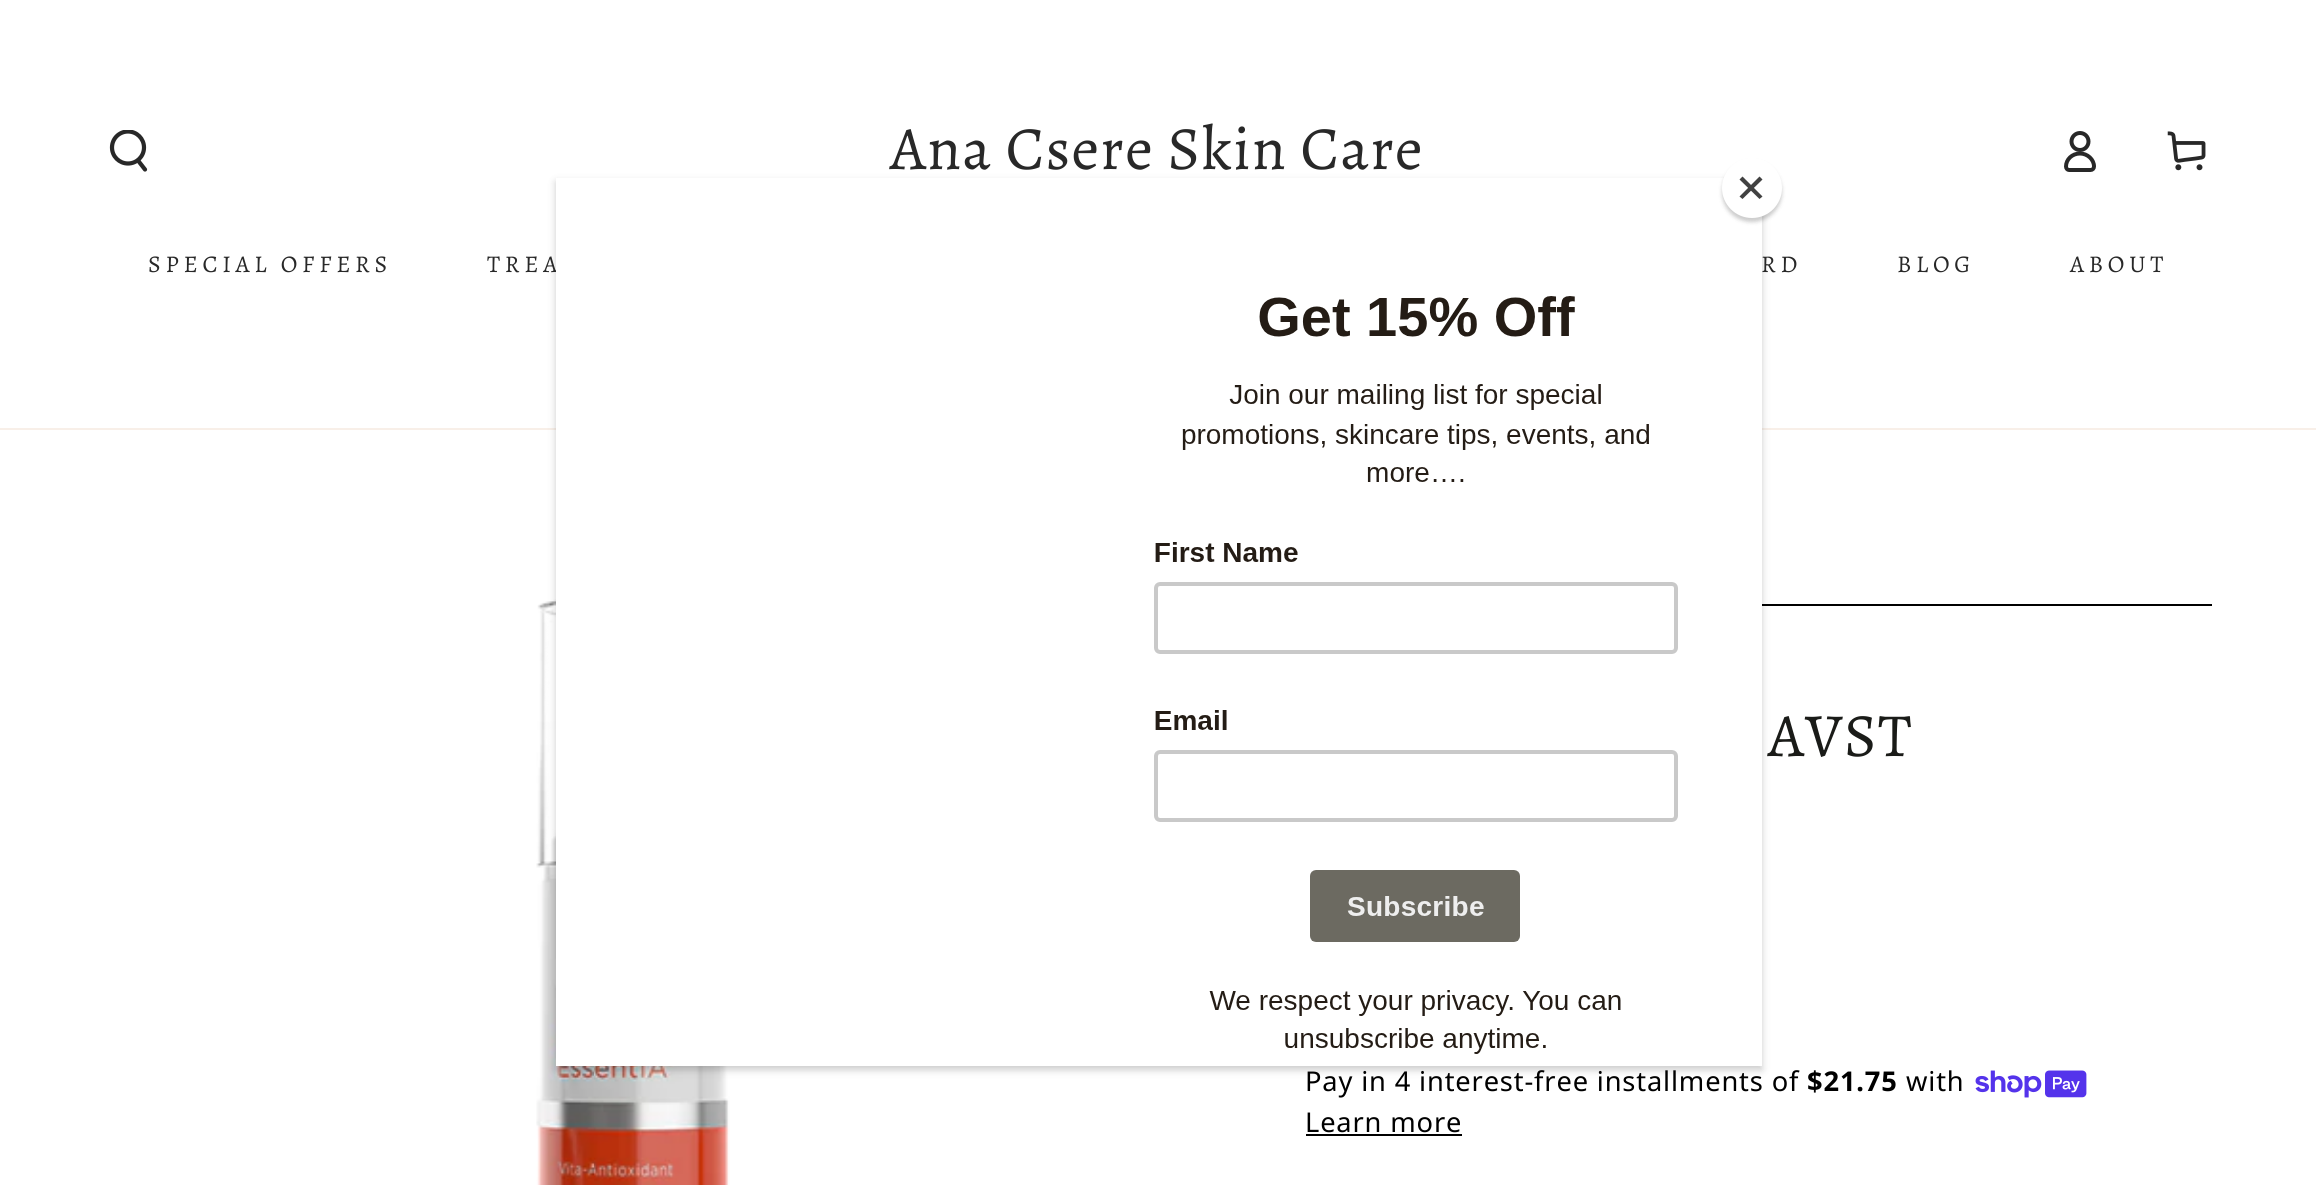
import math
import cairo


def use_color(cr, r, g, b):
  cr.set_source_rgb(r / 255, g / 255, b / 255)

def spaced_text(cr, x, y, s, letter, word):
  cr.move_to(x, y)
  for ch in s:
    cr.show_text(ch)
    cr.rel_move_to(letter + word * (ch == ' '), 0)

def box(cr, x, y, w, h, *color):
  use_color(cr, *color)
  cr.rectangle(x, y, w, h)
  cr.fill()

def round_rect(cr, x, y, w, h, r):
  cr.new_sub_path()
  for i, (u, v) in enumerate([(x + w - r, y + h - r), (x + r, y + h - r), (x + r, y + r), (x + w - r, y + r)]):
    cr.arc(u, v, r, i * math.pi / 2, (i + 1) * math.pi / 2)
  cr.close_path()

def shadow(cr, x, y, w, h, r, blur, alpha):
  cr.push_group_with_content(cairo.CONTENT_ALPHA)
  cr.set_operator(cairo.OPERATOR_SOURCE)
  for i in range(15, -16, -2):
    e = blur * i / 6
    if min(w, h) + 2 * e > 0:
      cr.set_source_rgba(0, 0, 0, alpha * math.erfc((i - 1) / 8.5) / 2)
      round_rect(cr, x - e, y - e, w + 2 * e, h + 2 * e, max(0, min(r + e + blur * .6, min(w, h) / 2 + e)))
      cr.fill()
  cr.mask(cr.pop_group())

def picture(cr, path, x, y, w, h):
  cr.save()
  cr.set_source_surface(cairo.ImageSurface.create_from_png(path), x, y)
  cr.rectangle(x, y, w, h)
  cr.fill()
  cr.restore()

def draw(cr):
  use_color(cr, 255, 255, 255)
  cr.paint()
  box(cr, 0, 428, 2316, 2, 248, 239, 232)
  cr.save()
  cr.rectangle(108, 130, 42, 42)
  cr.clip()
  cr.arc(128, 147.5, 16, 0, 2 * math.pi)
  use_color(cr, 40, 40, 40)
  cr.set_line_width(4.2)
  cr.stroke()
  cr.restore()
  cr.new_path()
  cr.move_to(138, 160.5)
  cr.line_to(145, 169.5)
  use_color(cr, 40, 40, 40)
  cr.set_line_width(4.2)
  cr.set_line_cap(cairo.LINE_CAP_ROUND)
  cr.stroke()
  cr.new_path()
  cr.move_to(2080, 153.5)
  cr.curve_to(2072, 153.5, 2066, 159.5, 2066, 166.5)
  cr.curve_to(2066, 168.5, 2067.5, 170, 2069, 170)
  cr.line_to(2090.5, 170)
  cr.curve_to(2092.5, 170, 2094, 168.5, 2094, 166.5)
  cr.curve_to(2094, 159.5, 2087.5, 153.5, 2080, 153.5)
  cr.close_path()
  cr.set_line_width(4)
  cr.set_line_cap(cairo.LINE_CAP_BUTT)
  cr.stroke()
  cr.arc(2080, 141.5, 8.5, 0, 2 * math.pi)
  cr.stroke()
  picture(cr, "img_01.png", 2167, 131, 39, 40)
  picture(cr, "img_02.png", 536, 599, 194, 586)
  box(cr, 1762, 604, 450, 2, 0, 0, 0)
  picture(cr, "img_03.png", 1975, 1070, 112, 28)
  box(cr, 1306, 1134, 156, 2, 0, 0, 0)
  use_color(cr, 0, 0, 0)
  shadow(cr, 1722, 162, 60, 60, 30, 2, 0.2)
  cr.save()
  cr.set_fill_rule(cairo.FILL_RULE_EVEN_ODD)
  cr.new_path()
  cr.move_to(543, 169)
  cr.line_to(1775, 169)
  cr.line_to(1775, 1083)
  cr.line_to(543, 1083)
  cr.close_path()
  cr.move_to(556, 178)
  cr.line_to(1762, 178)
  cr.line_to(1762, 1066)
  cr.line_to(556, 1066)
  cr.close_path()
  cr.clip()
  shadow(cr, 556, 182, 1206, 888, 0, 4, 0.2)
  cr.restore()
  use_color(cr, 255, 255, 255)
  cr.arc(1752, 188, 30, 0, 2 * math.pi)
  cr.fill()
  use_color(cr, 65, 65, 65)
  cr.new_path()
  cr.move_to(1759.5, 176.5)
  cr.line_to(1762.5, 179.5)
  cr.line_to(1742.5, 199)
  cr.line_to(1739.5, 196.5)
  cr.close_path()
  cr.fill()
  cr.new_path()
  cr.move_to(1739.5, 179.5)
  cr.line_to(1742.5, 176.5)
  cr.line_to(1762.5, 196.5)
  cr.line_to(1759.5, 199)
  cr.close_path()
  cr.fill()
  cr.select_font_face("Alegreya")
  cr.set_font_size(61.5)
  use_color(cr, 40, 40, 40)
  spaced_text(cr, 890, 169, "Ana Csere Skin Care", 1.3, 0)
  cr.set_font_size(24)
  spaced_text(cr, 148, 272, "SPECIAL OFFERS", 4.75, 0)
  spaced_text(cr, 487, 272, "TREA", 4.75, 0)
  spaced_text(cr, 1761, 272, "RD", 4.75, 0)
  spaced_text(cr, 1897, 272, "BLOG", 4.75, 0)
  spaced_text(cr, 2070, 272, "ABOUT", 4.75, 0)
  cr.set_font_size(61.5)
  use_color(cr, 26, 27, 24)
  spaced_text(cr, 1768, 756, "AVST", 1.3, 0)
  cr.select_font_face("Noto Sans")
  cr.set_font_size(27.25)
  use_color(cr, 0, 0, 0)
  spaced_text(cr, 1305, 1091, "Pay in 4 interest-free installments of", 0.85, 0)
  cr.select_font_face("Noto Sans", cairo.FONT_SLANT_NORMAL, cairo.FONT_WEIGHT_BOLD)
  spaced_text(cr, 1807, 1091, "$21.75", 0.85, 0)
  cr.select_font_face("Noto Sans")
  spaced_text(cr, 1906, 1091, "with", 0.85, 0)
  spaced_text(cr, 1305, 1132, "Learn more", 0.85, 0)
  picture(cr, "img_04.png", 556, 256, 1206, 810)


surface = cairo.ImageSurface(cairo.FORMAT_RGB24, 2316, 1185)
cr = cairo.Context(surface)
options = cairo.FontOptions()
options.set_hint_metrics(cairo.HINT_METRICS_OFF)
options.set_hint_style(cairo.HINT_STYLE_NONE)
cr.set_font_options(options)
cr.set_miter_limit(4)
draw(cr)
surface.write_to_png("out.png")
